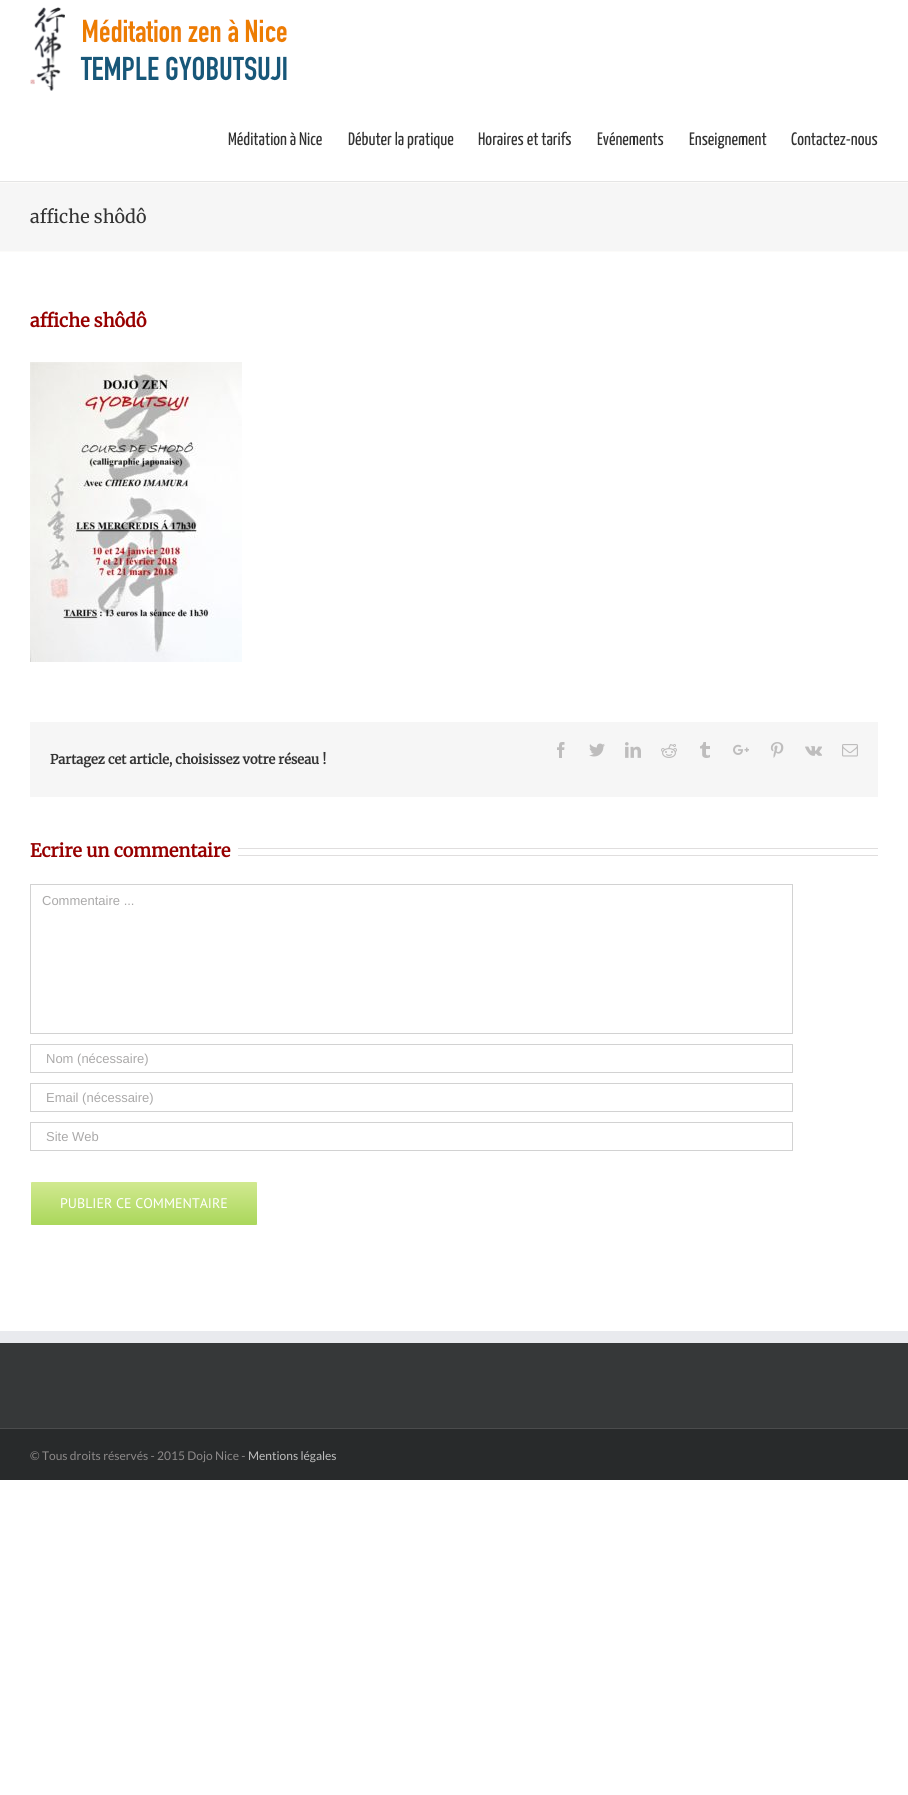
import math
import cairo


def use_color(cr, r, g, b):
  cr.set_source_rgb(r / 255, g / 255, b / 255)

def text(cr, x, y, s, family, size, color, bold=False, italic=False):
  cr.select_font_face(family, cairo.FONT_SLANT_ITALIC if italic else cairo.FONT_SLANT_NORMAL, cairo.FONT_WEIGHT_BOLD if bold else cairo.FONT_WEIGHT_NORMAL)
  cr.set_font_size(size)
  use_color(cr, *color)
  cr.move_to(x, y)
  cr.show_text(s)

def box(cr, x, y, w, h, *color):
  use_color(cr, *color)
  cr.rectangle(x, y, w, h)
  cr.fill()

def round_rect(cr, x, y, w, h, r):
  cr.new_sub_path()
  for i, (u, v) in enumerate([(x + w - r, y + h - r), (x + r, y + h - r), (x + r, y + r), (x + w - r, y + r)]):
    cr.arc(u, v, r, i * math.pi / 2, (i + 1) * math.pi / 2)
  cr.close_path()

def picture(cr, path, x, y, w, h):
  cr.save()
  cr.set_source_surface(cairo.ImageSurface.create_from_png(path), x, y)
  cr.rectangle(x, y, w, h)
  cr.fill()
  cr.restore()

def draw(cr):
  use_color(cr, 255, 255, 255)
  cr.paint()
  box(cr, 0, 181, 908, 1, 229, 229, 229)
  picture(cr, "img_01.png", 30, 7, 257, 84)
  box(cr, 0, 183, 908, 68, 246, 246, 246)
  box(cr, 0, 182, 908, 1, 252, 251, 249)
  box(cr, 0, 251, 908, 1, 252, 251, 249)
  picture(cr, "img_02.png", 30, 362, 212, 300)
  box(cr, 30, 722, 848, 75, 246, 246, 246)
  picture(cr, "img_03.png", 557, 742, 8, 16)
  picture(cr, "img_04.png", 589, 743, 16, 14)
  picture(cr, "img_05.png", 625, 742, 16, 16)
  picture(cr, "img_06.png", 661, 744, 16, 14)
  picture(cr, "img_07.png", 700, 742, 10, 16)
  picture(cr, "img_08.png", 733, 744, 16, 11)
  picture(cr, "img_09.png", 770, 742, 14, 16)
  picture(cr, "img_10.png", 805, 746, 17, 10)
  picture(cr, "img_11.png", 842, 744, 16, 13)
  box(cr, 238, 848, 640, 1, 224, 222, 222)
  box(cr, 238, 855, 640, 1, 224, 222, 222)
  cr.rectangle(30.5, 884.5, 762, 149)
  use_color(cr, 210, 210, 210)
  cr.set_line_width(1)
  cr.stroke()
  cr.rectangle(30.5, 1044.5, 762, 28)
  cr.stroke()
  cr.rectangle(30.5, 1083.5, 762, 28)
  cr.stroke()
  cr.rectangle(30.5, 1122.5, 762, 28)
  cr.stroke()
  cr.save()
  round_rect(cr, 30, 1181, 228, 45, 2)
  cr.clip()
  gradient = cairo.LinearGradient(144, 1225, 144, 1182)
  gradient.add_color_stop_rgba(0, 0.667, 0.843, 0.357, 1)
  gradient.add_color_stop_rgba(1, 0.82, 0.914, 0.565, 1)
  cr.set_source(gradient)
  cr.rectangle(30, 1182, 228, 43)
  cr.fill()
  cr.restore()
  round_rect(cr, 30.5, 1181.5, 227, 44, 1.5)
  use_color(cr, 255, 255, 255)
  cr.stroke()
  box(cr, 0, 1343, 908, 85, 54, 56, 57)
  box(cr, 0, 1331, 908, 12, 233, 234, 238)
  box(cr, 0, 1429, 908, 51, 40, 42, 43)
  box(cr, 0, 1428, 908, 1, 75, 76, 77)
  text(cr, 228, 145, "Méditation à Nice", "Yanone Kaffeesatz ExtraLight", 18, (51, 51, 51))
  text(cr, 348, 145, "Débuter la pratique", "Yanone Kaffeesatz ExtraLight", 18, (51, 51, 51))
  text(cr, 478, 145, "Horaires et tarifs", "Yanone Kaffeesatz ExtraLight", 18, (51, 51, 51))
  text(cr, 597, 145, "Evénements", "Yanone Kaffeesatz ExtraLight", 18, (51, 51, 51))
  text(cr, 689, 145, "Enseignement", "Yanone Kaffeesatz ExtraLight", 18, (51, 51, 51))
  text(cr, 791, 145, "Contactez-nous", "Yanone Kaffeesatz ExtraLight", 18, (51, 51, 51))
  text(cr, 30, 223, "affiche shôdô", "Merriweather Light", 18, (51, 51, 51))
  text(cr, 30, 327, "affiche shôdô", "Merriweather", 18, (151, 0, 0), bold=True)
  text(cr, 50, 764, "Partagez cet article, choisissez votre réseau !", "Merriweather", 13, (51, 51, 51), bold=True)
  text(cr, 30, 857, "Ecrire un commentaire", "Merriweather", 18, (151, 0, 0), bold=True)
  text(cr, 42, 905, "Commentaire ...", "Liberation Sans", 13, (170, 169, 169))
  text(cr, 46, 1063, "Nom (nécessaire)", "Liberation Sans", 13, (170, 169, 169))
  text(cr, 46, 1102, "Email (nécessaire)", "Liberation Sans", 13, (170, 169, 169))
  text(cr, 46, 1141, "Site Web", "Liberation Sans", 13, (170, 169, 169))
  text(cr, 60, 1208, "PUBLIER CE COMMENTAIRE", "PT Sans", 14, (255, 255, 255))
  text(cr, 30, 1460, "© Tous droits réservés - 2015 Dojo Nice -", "Lato", 12, (140, 137, 137))
  text(cr, 248, 1460, "Mentions légales", "Lato", 12, (191, 191, 191))


surface = cairo.ImageSurface(cairo.FORMAT_RGB24, 908, 1795)
cr = cairo.Context(surface)
options = cairo.FontOptions()
options.set_hint_metrics(cairo.HINT_METRICS_OFF)
options.set_hint_style(cairo.HINT_STYLE_NONE)
cr.set_font_options(options)
cr.set_miter_limit(4)
draw(cr)
surface.write_to_png("out.png")
